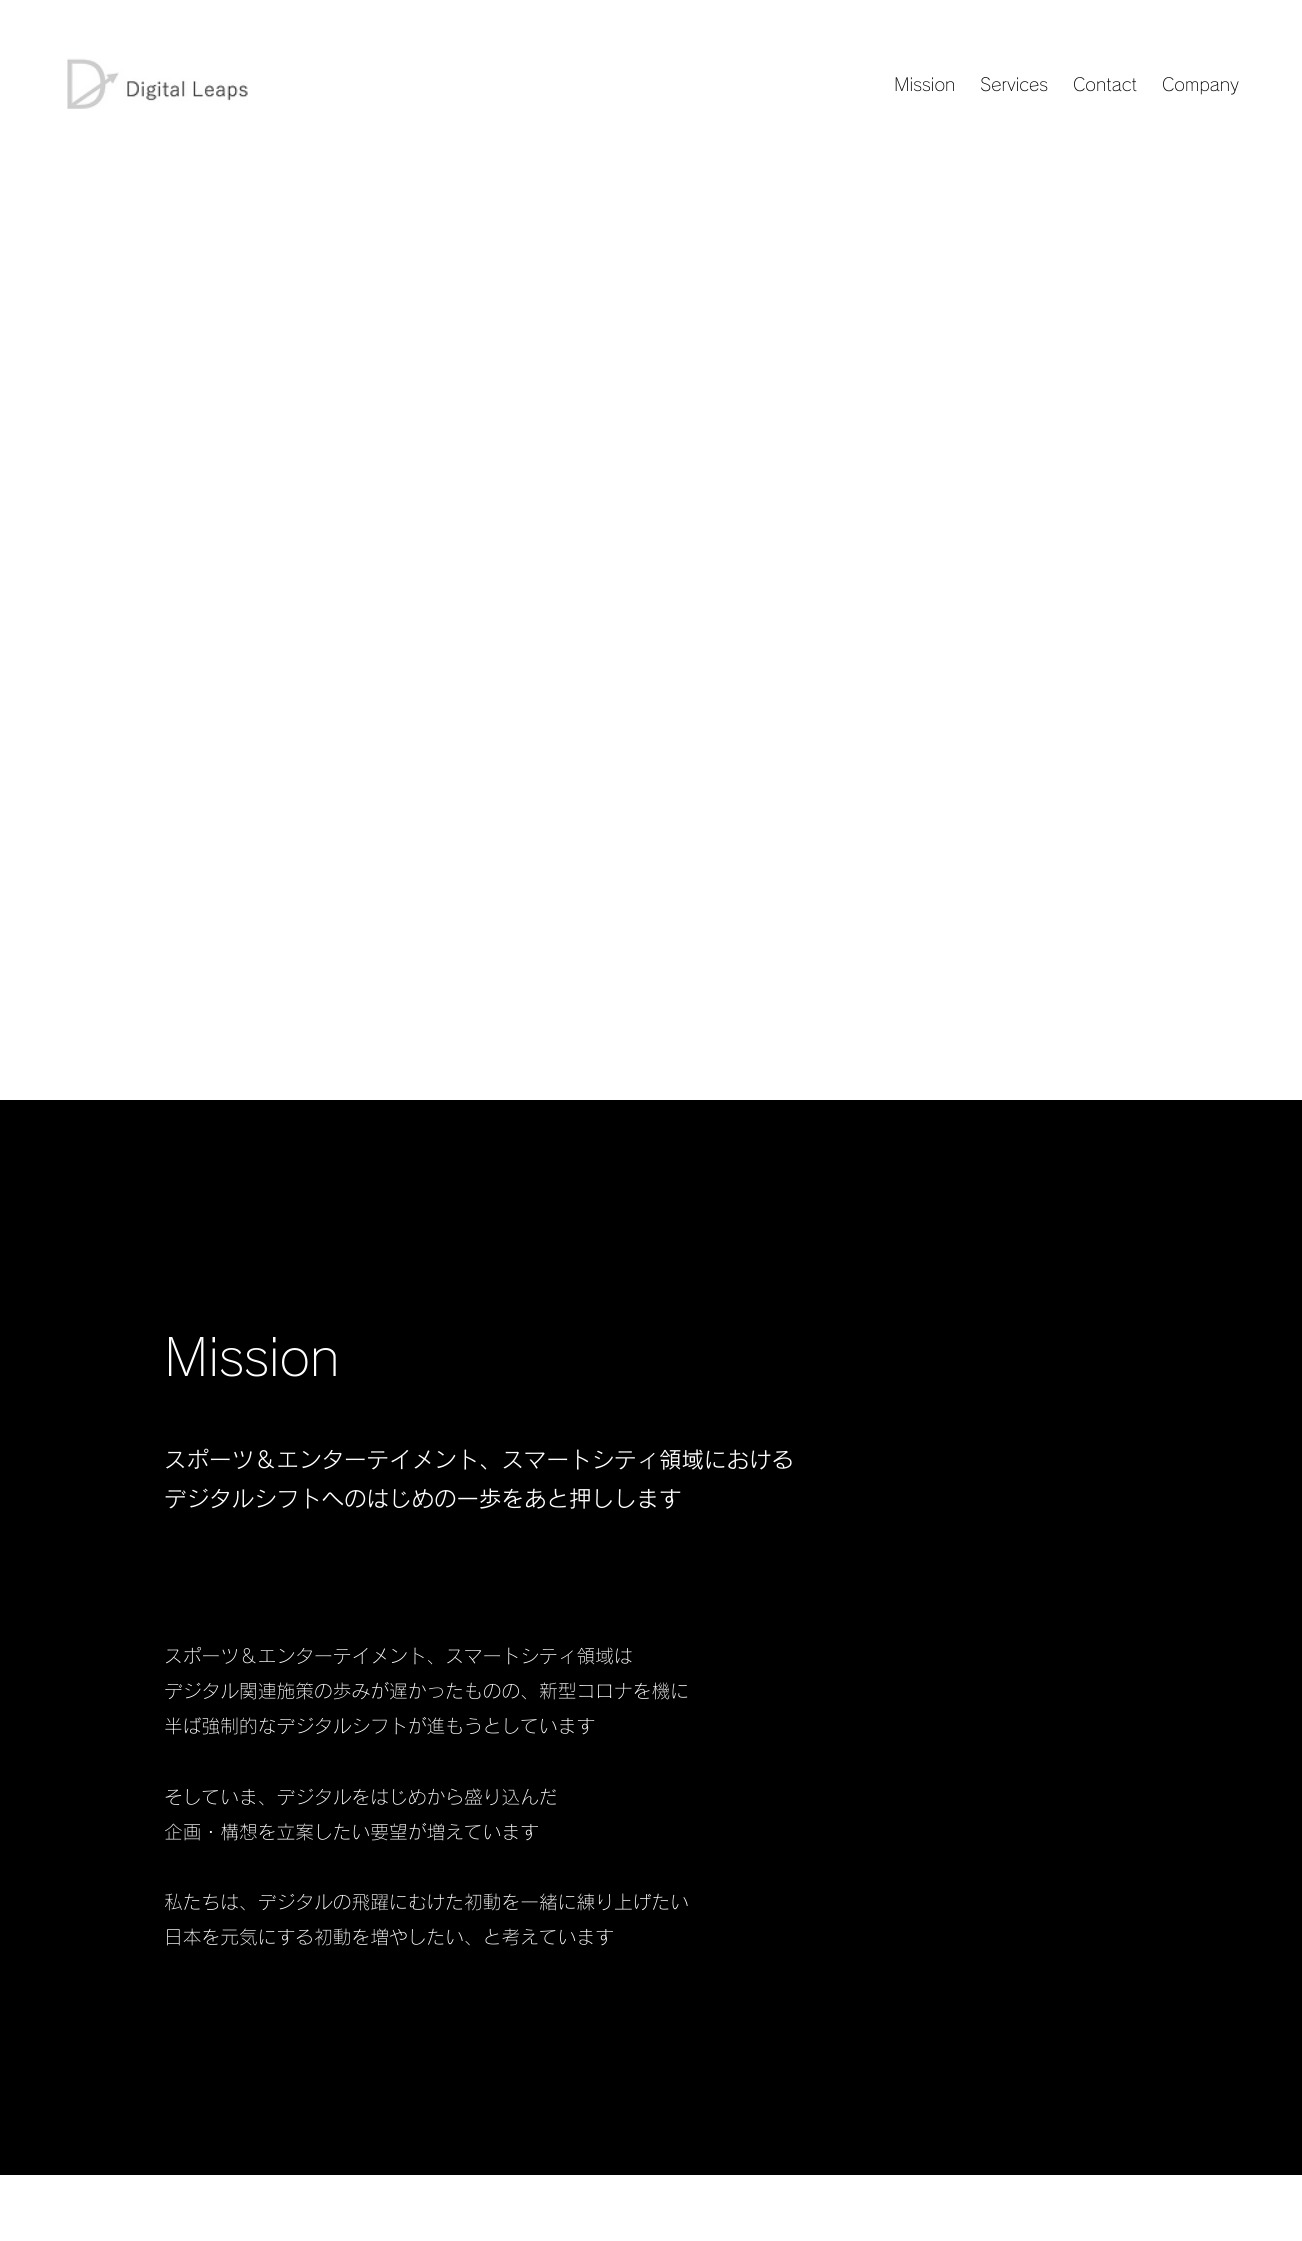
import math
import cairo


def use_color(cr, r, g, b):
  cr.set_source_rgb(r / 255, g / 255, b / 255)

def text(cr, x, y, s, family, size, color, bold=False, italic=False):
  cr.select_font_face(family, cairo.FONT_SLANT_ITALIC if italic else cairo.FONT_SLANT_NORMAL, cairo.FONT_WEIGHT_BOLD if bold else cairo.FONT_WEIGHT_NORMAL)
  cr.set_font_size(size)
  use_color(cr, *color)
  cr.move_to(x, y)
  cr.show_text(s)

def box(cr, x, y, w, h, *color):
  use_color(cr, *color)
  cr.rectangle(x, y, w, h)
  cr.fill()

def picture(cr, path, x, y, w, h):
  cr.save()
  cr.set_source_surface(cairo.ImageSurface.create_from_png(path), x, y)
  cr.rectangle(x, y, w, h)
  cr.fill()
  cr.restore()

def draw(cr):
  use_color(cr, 255, 255, 255)
  cr.paint()
  picture(cr, "img_01.png", 67, 58, 181, 51)
  box(cr, 0, 1100, 1302, 1075, 0, 0, 0)
  text(cr, 894, 91, "Mission", "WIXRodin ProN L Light", 17.5, (0, 0, 0))
  text(cr, 980, 91, "Services", "WIXRodin ProN L Light", 17.5, (0, 0, 0))
  text(cr, 1073, 91, "Contact", "WIXRodin ProN L Light", 17.5, (0, 0, 0))
  text(cr, 1162, 91, "Company", "WIXRodin ProN L Light", 17.5, (0, 0, 0))
  text(cr, 164, 1376, "Mission", "WIXRodin ProN L Light", 50, (255, 255, 255))
  text(cr, 164, 1468, "スポーツ＆エンターテイメント、スマートシティ領域における", "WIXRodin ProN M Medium", 22.5, (255, 255, 255))
  text(cr, 164, 1507, "デジタルシフトへのはじめの一歩をあと押しします", "WIXRodin ProN M Medium", 22.5, (255, 255, 255))
  text(cr, 164, 1663, "スポーツ＆エンターテイメント、スマートシティ領域は", "WIXRodin ProN L Light", 18.75, (255, 255, 255))
  text(cr, 164, 1698, "デジタル関連施策の歩みが遅かったものの、新型コロナを機に", "WIXRodin ProN L Light", 18.75, (255, 255, 255))
  text(cr, 164, 1733, "半ば強制的なデジタルシフトが進もうとしています", "WIXRodin ProN L Light", 18.75, (255, 255, 255))
  text(cr, 164, 1804, "そしていま、デジタルをはじめから盛り込んだ", "WIXRodin ProN L Light", 18.75, (255, 255, 255))
  text(cr, 164, 1839, "企画・構想を立案したい要望が増えています", "WIXRodin ProN L Light", 18.75, (255, 255, 255))
  text(cr, 164, 1909, "私たちは、デジタルの飛躍にむけた初動を一緒に練り上げたい", "WIXRodin ProN L Light", 18.75, (255, 255, 255))
  text(cr, 164, 1944, "日本を元気にする初動を増やしたい、と考えています", "WIXRodin ProN L Light", 18.75, (255, 255, 255))


surface = cairo.ImageSurface(cairo.FORMAT_RGB24, 1302, 2241)
cr = cairo.Context(surface)
options = cairo.FontOptions()
options.set_hint_metrics(cairo.HINT_METRICS_OFF)
options.set_hint_style(cairo.HINT_STYLE_NONE)
cr.set_font_options(options)
cr.set_miter_limit(4)
draw(cr)
surface.write_to_png("out.png")
